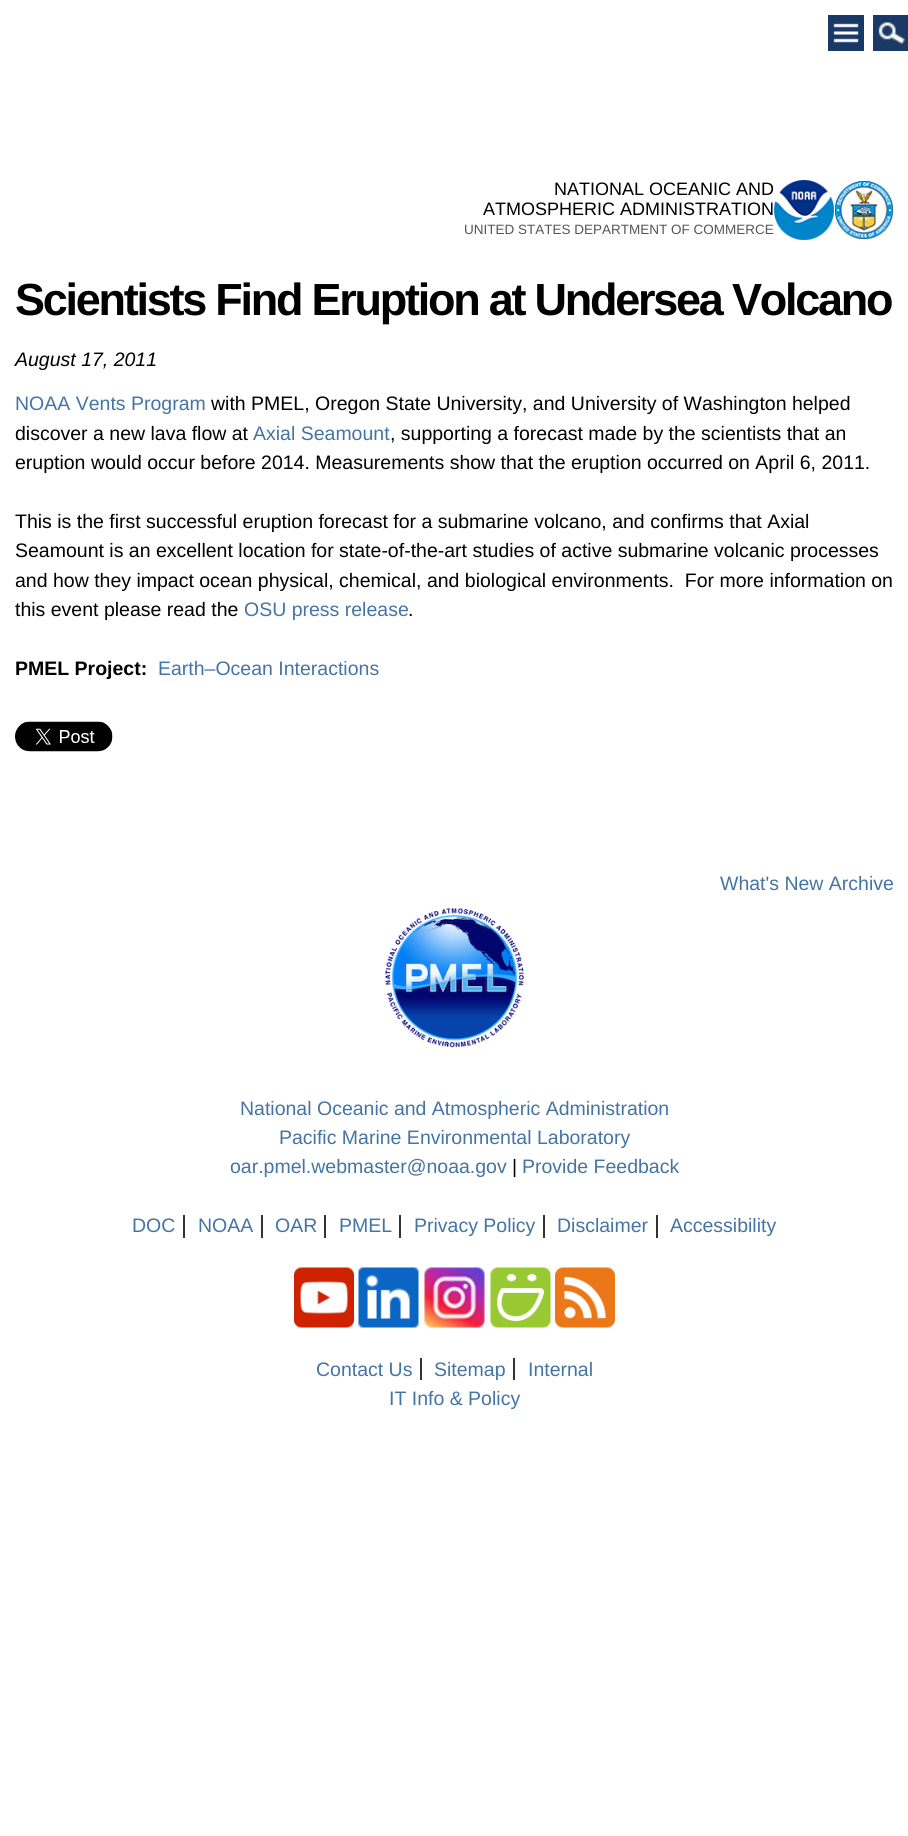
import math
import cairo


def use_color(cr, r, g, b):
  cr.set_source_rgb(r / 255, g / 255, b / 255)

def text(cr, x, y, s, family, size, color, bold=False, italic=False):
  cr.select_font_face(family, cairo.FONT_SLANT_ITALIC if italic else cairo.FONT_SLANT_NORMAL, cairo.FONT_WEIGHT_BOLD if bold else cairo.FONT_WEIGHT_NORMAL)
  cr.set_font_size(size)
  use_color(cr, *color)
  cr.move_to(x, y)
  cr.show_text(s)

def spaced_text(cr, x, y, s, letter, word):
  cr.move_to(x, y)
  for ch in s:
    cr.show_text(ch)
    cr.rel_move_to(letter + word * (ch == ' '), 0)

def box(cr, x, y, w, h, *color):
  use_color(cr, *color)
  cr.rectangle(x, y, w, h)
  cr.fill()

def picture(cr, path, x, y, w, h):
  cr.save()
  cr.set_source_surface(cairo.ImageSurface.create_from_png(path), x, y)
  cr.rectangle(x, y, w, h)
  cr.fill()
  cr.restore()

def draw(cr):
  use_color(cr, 255, 255, 255)
  cr.paint()
  picture(cr, "img_01.png", 828, 15, 36, 36)
  picture(cr, "img_02.png", 873, 15, 35, 36)
  picture(cr, "img_03.png", 774, 180, 60, 60)
  picture(cr, "img_04.png", 835, 181, 59, 59)
  picture(cr, "img_05.png", 15, 721, 98, 31)
  picture(cr, "img_06.png", 385, 908, 139, 140)
  box(cr, 183, 1215, 2, 23, 51, 51, 51)
  box(cr, 261, 1215, 2, 23, 51, 51, 51)
  box(cr, 324, 1215, 2, 23, 51, 51, 51)
  box(cr, 399, 1215, 2, 23, 51, 51, 51)
  box(cr, 543, 1215, 2, 23, 51, 51, 51)
  box(cr, 656, 1215, 2, 23, 51, 51, 51)
  picture(cr, "img_07.png", 294, 1267, 60, 61)
  picture(cr, "img_08.png", 358, 1267, 61, 61)
  picture(cr, "img_09.png", 424, 1267, 61, 61)
  picture(cr, "img_10.png", 490, 1267, 61, 61)
  picture(cr, "img_11.png", 555, 1267, 60, 61)
  box(cr, 420, 1358, 2, 22, 51, 51, 51)
  box(cr, 513, 1358, 2, 22, 51, 51, 51)
  text(cr, 554, 195, "NATIONAL OCEANIC AND", "Liberation Sans", 18, (0, 0, 0))
  text(cr, 483, 215, "ATMOSPHERIC ADMINISTRATION", "Liberation Sans", 18, (0, 0, 0))
  text(cr, 464, 234, "UNITED STATES DEPARTMENT OF COMMERCE", "Liberation Sans", 13.5, (85, 85, 85))
  cr.select_font_face("Liberation Sans", cairo.FONT_SLANT_NORMAL, cairo.FONT_WEIGHT_BOLD)
  cr.set_font_size(45)
  use_color(cr, 0, 0, 0)
  spaced_text(cr, 15, 315, "Scientists Find Eruption at Undersea Volcano", -2.25, 0)
  text(cr, 15, 366, "August 17, 2011", "Liberation Sans", 19.5, (0, 0, 0), italic=True)
  text(cr, 15, 410, "NOAA Vents Program", "Liberation Sans", 19.5, (68, 116, 163))
  text(cr, 211, 410, "with PMEL, Oregon State University, and University of Washington helped", "Liberation Sans", 19.5, (0, 0, 0))
  text(cr, 15, 440, "discover a new lava flow at", "Liberation Sans", 19.5, (0, 0, 0))
  text(cr, 253, 440, "Axial Seamount", "Liberation Sans", 19.5, (68, 116, 163))
  text(cr, 390, 440, ", supporting a forecast made by the scientists that an", "Liberation Sans", 19.5, (0, 0, 0))
  text(cr, 15, 469, "eruption would occur before 2014. Measurements show that the eruption occurred on April 6, 2011.", "Liberation Sans", 19.5, (0, 0, 0))
  text(cr, 15, 528, "This is the first successful eruption forecast for a submarine volcano, and confirms that Axial", "Liberation Sans", 19.5, (0, 0, 0))
  text(cr, 15, 557, "Seamount is an excellent location for state-of-the-art studies of active submarine volcanic processes", "Liberation Sans", 19.5, (0, 0, 0))
  text(cr, 15, 587, "and how they impact ocean physical, chemical, and biological environments.  For more information on", "Liberation Sans", 19.5, (0, 0, 0))
  text(cr, 15, 616, "this event please read the", "Liberation Sans", 19.5, (0, 0, 0))
  text(cr, 244, 616, "OSU press release", "Liberation Sans", 19.5, (68, 116, 163))
  text(cr, 408, 616, ".", "Liberation Sans", 19.5, (0, 0, 0))
  text(cr, 15, 675, "PMEL Project:", "Liberation Sans", 19.5, (0, 0, 0), bold=True)
  text(cr, 158, 675, "Earth–Ocean Interactions", "Liberation Sans", 19.5, (68, 116, 163))
  text(cr, 720, 890, "What's New Archive", "Liberation Sans", 19.5, (68, 116, 163))
  text(cr, 240, 1115, "National Oceanic and Atmospheric Administration", "Liberation Sans", 19.5, (68, 116, 163))
  text(cr, 279, 1144, "Pacific Marine Environmental Laboratory", "Liberation Sans", 19.5, (68, 116, 163))
  text(cr, 230, 1173, "oar.pmel.webmaster@noaa.gov", "Liberation Sans", 19.5, (68, 116, 163))
  text(cr, 512, 1173, "|", "Liberation Sans", 19.5, (0, 0, 0))
  text(cr, 522, 1173, "Provide Feedback", "Liberation Sans", 19.5, (68, 116, 163))
  text(cr, 132, 1232, "DOC", "Liberation Sans", 19.5, (68, 116, 163))
  text(cr, 198, 1232, "NOAA", "Liberation Sans", 19.5, (68, 116, 163))
  text(cr, 275, 1232, "OAR", "Liberation Sans", 19.5, (68, 116, 163))
  text(cr, 339, 1232, "PMEL", "Liberation Sans", 19.5, (68, 116, 163))
  text(cr, 414, 1232, "Privacy Policy", "Liberation Sans", 19.5, (68, 116, 163))
  text(cr, 557, 1232, "Disclaimer", "Liberation Sans", 19.5, (68, 116, 163))
  text(cr, 670, 1232, "Accessibility", "Liberation Sans", 19.5, (68, 116, 163))
  text(cr, 316, 1376, "Contact Us", "Liberation Sans", 19.5, (68, 116, 163))
  text(cr, 434, 1376, "Sitemap", "Liberation Sans", 19.5, (68, 116, 163))
  text(cr, 528, 1376, "Internal", "Liberation Sans", 19.5, (68, 116, 163))
  text(cr, 389, 1405, "IT Info & Policy", "Liberation Sans", 19.5, (68, 116, 163))


surface = cairo.ImageSurface(cairo.FORMAT_RGB24, 908, 1836)
cr = cairo.Context(surface)
options = cairo.FontOptions()
options.set_hint_metrics(cairo.HINT_METRICS_OFF)
options.set_hint_style(cairo.HINT_STYLE_NONE)
cr.set_font_options(options)
cr.set_miter_limit(4)
draw(cr)
surface.write_to_png("out.png")
